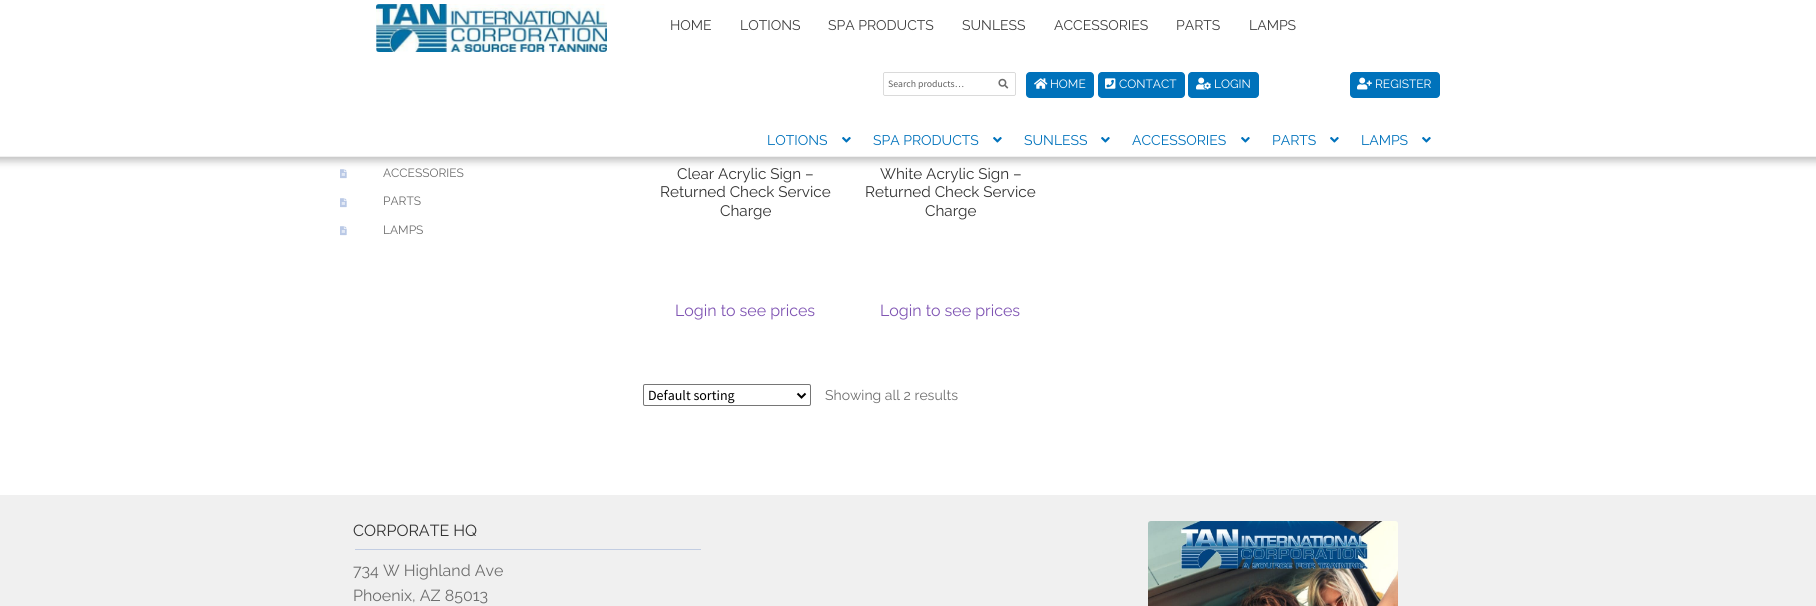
import math
import cairo


def use_color(cr, r, g, b):
  cr.set_source_rgb(r / 255, g / 255, b / 255)

def text(cr, x, y, s, family, size, color, bold=False, italic=False):
  cr.select_font_face(family, cairo.FONT_SLANT_ITALIC if italic else cairo.FONT_SLANT_NORMAL, cairo.FONT_WEIGHT_BOLD if bold else cairo.FONT_WEIGHT_NORMAL)
  cr.set_font_size(size)
  use_color(cr, *color)
  cr.move_to(x, y)
  cr.show_text(s)

def box(cr, x, y, w, h, *color):
  use_color(cr, *color)
  cr.rectangle(x, y, w, h)
  cr.fill()

def round_rect(cr, x, y, w, h, r):
  cr.new_sub_path()
  for i, (u, v) in enumerate([(x + w - r, y + h - r), (x + r, y + h - r), (x + r, y + r), (x + w - r, y + r)]):
    cr.arc(u, v, r, i * math.pi / 2, (i + 1) * math.pi / 2)
  cr.close_path()

def shadow(cr, x, y, w, h, r, blur, alpha):
  cr.push_group_with_content(cairo.CONTENT_ALPHA)
  cr.set_operator(cairo.OPERATOR_SOURCE)
  for i in range(15, -16, -2):
    e = blur * i / 6
    if min(w, h) + 2 * e > 0:
      cr.set_source_rgba(0, 0, 0, alpha * math.erfc((i - 1) / 8.5) / 2)
      round_rect(cr, x - e, y - e, w + 2 * e, h + 2 * e, max(0, min(r + e + blur * .6, min(w, h) / 2 + e)))
      cr.fill()
  cr.mask(cr.pop_group())

def picture(cr, path, x, y, w, h):
  cr.save()
  cr.set_source_surface(cairo.ImageSurface.create_from_png(path), x, y)
  cr.rectangle(x, y, w, h)
  cr.fill()
  cr.restore()

def draw(cr):
  use_color(cr, 255, 255, 255)
  cr.paint()
  picture(cr, "img_08.png", 340, 169, 7, 10)
  use_color(cr, 0, 0, 0)
  shadow(cr, -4, -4, 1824, 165, 0, 4, 0.25)
  box(cr, 0, 0, 1816, 156, 255, 255, 255)
  box(cr, 0, 156, 1816, 1, 240, 240, 240)
  picture(cr, "img_01.png", 376, 4, 231, 48)
  round_rect(cr, 883.35, 72.35, 132.3, 23.3, 2.15)
  use_color(cr, 204, 204, 204)
  cr.set_line_width(0.7)
  cr.stroke()
  picture(cr, "img_02.png", 998, 78, 11, 11)
  use_color(cr, 0, 114, 187)
  round_rect(cr, 1026, 72, 68, 26, 4)
  cr.fill()
  picture(cr, "img_03.png", 1034, 78, 14, 11)
  round_rect(cr, 1098, 72, 87, 26, 4)
  cr.fill()
  picture(cr, "img_04.png", 1105, 78, 11, 11)
  round_rect(cr, 1188, 72, 71, 26, 4)
  cr.fill()
  picture(cr, "img_05.png", 1196, 77, 15, 13)
  round_rect(cr, 1350, 72, 90, 26, 4)
  cr.fill()
  picture(cr, "img_06.png", 1357, 77, 15, 13)
  picture(cr, "img_07.png", 842, 137, 9, 6)
  picture(cr, "img_07.png", 993, 137, 9, 6)
  picture(cr, "img_07.png", 1101, 137, 9, 6)
  picture(cr, "img_07.png", 1241, 137, 9, 6)
  picture(cr, "img_07.png", 1330, 137, 9, 6)
  picture(cr, "img_07.png", 1422, 137, 9, 6)
  picture(cr, "img_08.png", 340, 198, 7, 10)
  picture(cr, "img_08.png", 340, 226, 7, 10)
  round_rect(cr, 643.5, 384.5, 167, 21, 1.5)
  use_color(cr, 118, 118, 118)
  cr.set_line_width(1)
  cr.stroke()
  cr.new_path()
  cr.move_to(797.5, 393.5)
  cr.line_to(801.5, 397.5)
  cr.line_to(805.5, 393.5)
  use_color(cr, 0, 0, 0)
  cr.set_line_width(2)
  cr.stroke()
  box(cr, 0, 495, 1816, 111, 240, 240, 240)
  box(cr, 355, 549, 346, 1, 194, 205, 226)
  picture(cr, "img_09.png", 1148, 521, 250, 85)
  text(cr, 670, 30, "HOME", "Raleway", 14, (64, 64, 64))
  text(cr, 740, 30, "LOTIONS", "Raleway", 14, (64, 64, 64))
  text(cr, 828, 30, "SPA PRODUCTS", "Raleway", 14, (64, 64, 64))
  text(cr, 962, 30, "SUNLESS", "Raleway", 14, (64, 64, 64))
  text(cr, 1054, 30, "ACCESSORIES", "Raleway", 14, (64, 64, 64))
  text(cr, 1176, 30, "PARTS", "Raleway", 14, (64, 64, 64))
  text(cr, 1249, 30, "LAMPS", "Raleway", 14, (64, 64, 64))
  text(cr, 888, 87, "Search products…", "Source Sans Pro", 9.75, (97, 97, 97))
  text(cr, 1050, 88, "HOME", "Raleway", 12, (255, 255, 255))
  text(cr, 1119, 88, "CONTACT", "Raleway", 12, (255, 255, 255))
  text(cr, 1214, 88, "LOGIN", "Raleway", 12, (255, 255, 255))
  text(cr, 1375, 88, "REGISTER", "Raleway", 12, (255, 255, 255))
  text(cr, 767, 145, "LOTIONS", "Raleway", 14, (0, 114, 188))
  text(cr, 873, 145, "SPA PRODUCTS", "Raleway", 14, (0, 114, 188))
  text(cr, 1024, 145, "SUNLESS", "Raleway", 14, (0, 114, 188))
  text(cr, 1132, 145, "ACCESSORIES", "Raleway", 14, (0, 114, 188))
  text(cr, 1272, 145, "PARTS", "Raleway", 14, (0, 114, 188))
  text(cr, 1361, 145, "LAMPS", "Raleway", 14, (0, 114, 188))
  text(cr, 383, 177, "ACCESSORIES", "Raleway", 12, (109, 109, 109))
  text(cr, 383, 205, "PARTS", "Raleway", 12, (109, 109, 109))
  text(cr, 383, 234, "LAMPS", "Raleway", 12, (109, 109, 109))
  text(cr, 677, 179, "Clear Acrylic Sign –", "Raleway", 15.25, (51, 51, 51))
  text(cr, 660, 197, "Returned Check Service", "Raleway", 15.25, (51, 51, 51))
  text(cr, 720, 216, "Charge", "Raleway", 15.25, (51, 51, 51))
  text(cr, 675, 316, "Login to see prices", "Raleway", 16, (127, 84, 179))
  text(cr, 880, 179, "White Acrylic Sign –", "Raleway", 15.25, (51, 51, 51))
  text(cr, 865, 197, "Returned Check Service", "Raleway", 15.25, (51, 51, 51))
  text(cr, 925, 216, "Charge", "Raleway", 15.25, (51, 51, 51))
  text(cr, 880, 316, "Login to see prices", "Raleway", 16, (127, 84, 179))
  text(cr, 648, 400, "Default sorting", "Source Sans Pro", 14, (0, 0, 0))
  text(cr, 825, 400, "Showing all 2 results", "Raleway", 14, (109, 109, 109))
  text(cr, 353, 536, "CORPORATE HQ", "Raleway", 16, (51, 51, 51))
  text(cr, 353, 576, "734 W Highland Ave", "Raleway", 16, (109, 109, 109))
  text(cr, 353, 601, "Phoenix, AZ 85013", "Raleway", 16, (109, 109, 109))


surface = cairo.ImageSurface(cairo.FORMAT_RGB24, 1816, 606)
cr = cairo.Context(surface)
options = cairo.FontOptions()
options.set_hint_metrics(cairo.HINT_METRICS_OFF)
options.set_hint_style(cairo.HINT_STYLE_NONE)
cr.set_font_options(options)
cr.set_miter_limit(4)
draw(cr)
surface.write_to_png("out.png")
